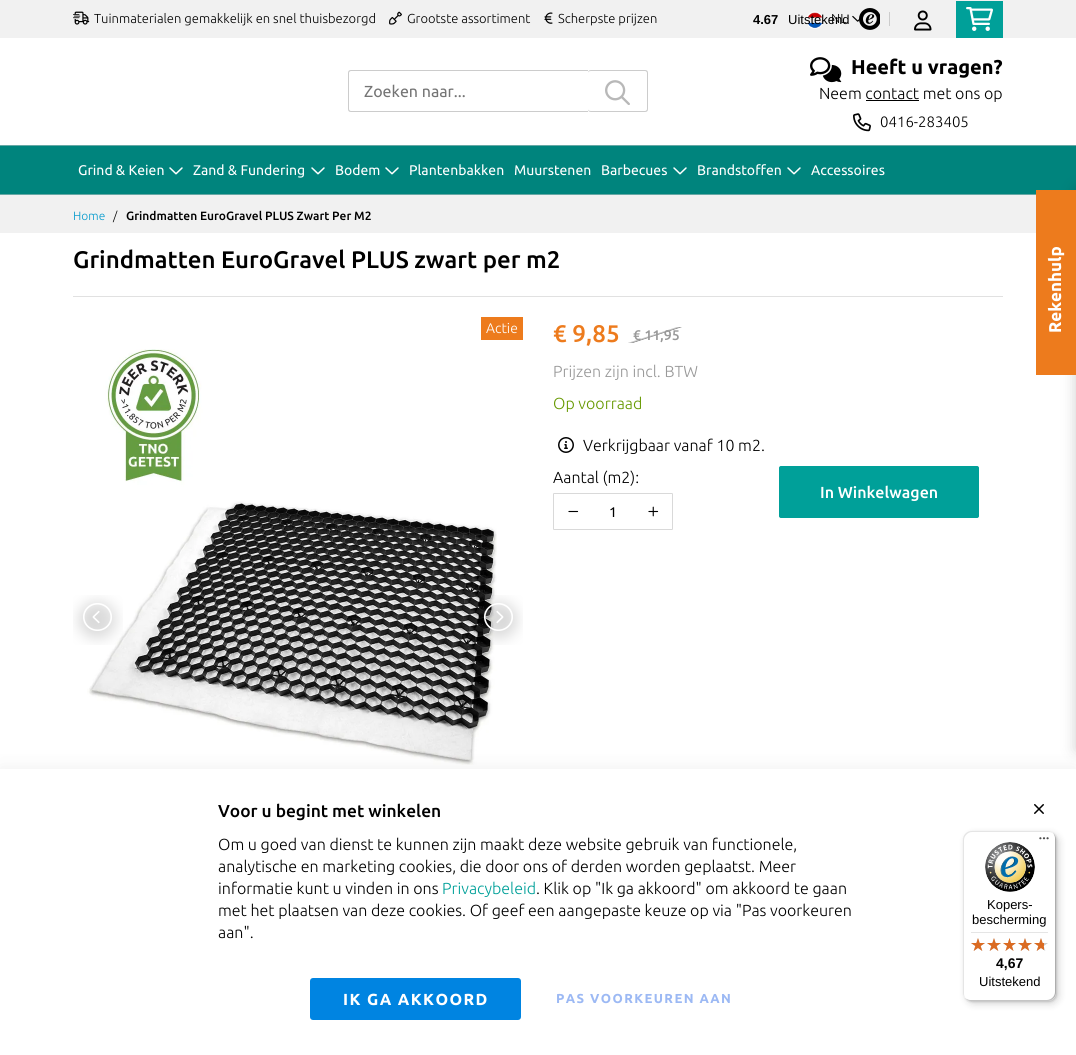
import math
import cairo


def use_color(cr, r, g, b):
  cr.set_source_rgb(r / 255, g / 255, b / 255)

def text(cr, x, y, s, family, size, color, bold=False, italic=False):
  cr.select_font_face(family, cairo.FONT_SLANT_ITALIC if italic else cairo.FONT_SLANT_NORMAL, cairo.FONT_WEIGHT_BOLD if bold else cairo.FONT_WEIGHT_NORMAL)
  cr.set_font_size(size)
  use_color(cr, *color)
  cr.move_to(x, y)
  cr.show_text(s)

def spaced_text(cr, x, y, s, letter, word):
  cr.move_to(x, y)
  for ch in s:
    cr.show_text(ch)
    cr.rel_move_to(letter + word * (ch == ' '), 0)

def box(cr, x, y, w, h, *color):
  use_color(cr, *color)
  cr.rectangle(x, y, w, h)
  cr.fill()

def round_rect(cr, x, y, w, h, r):
  cr.new_sub_path()
  for i, (u, v) in enumerate([(x + w - r, y + h - r), (x + r, y + h - r), (x + r, y + r), (x + w - r, y + r)]):
    cr.arc(u, v, r, i * math.pi / 2, (i + 1) * math.pi / 2)
  cr.close_path()

def shadow(cr, x, y, w, h, r, blur, alpha):
  cr.push_group_with_content(cairo.CONTENT_ALPHA)
  cr.set_operator(cairo.OPERATOR_SOURCE)
  for i in range(15, -16, -2):
    e = blur * i / 6
    if min(w, h) + 2 * e > 0:
      cr.set_source_rgba(0, 0, 0, alpha * math.erfc((i - 1) / 8.5) / 2)
      round_rect(cr, x - e, y - e, w + 2 * e, h + 2 * e, max(0, min(r + e + blur * .6, min(w, h) / 2 + e)))
      cr.fill()
  cr.mask(cr.pop_group())

def picture(cr, path, x, y, w, h):
  cr.save()
  cr.set_source_surface(cairo.ImageSurface.create_from_png(path), x, y)
  cr.rectangle(x, y, w, h)
  cr.fill()
  cr.restore()

def draw(cr):
  use_color(cr, 255, 255, 255)
  cr.paint()
  box(cr, 0, 0, 1076, 38, 241, 241, 241)
  picture(cr, "img_01.png", 73, 11, 17, 14)
  picture(cr, "img_02.png", 389, 11, 13, 14)
  picture(cr, "img_03.png", 544, 12, 9, 12)
  picture(cr, "img_06.png", 852, 15, 12, 7)
  picture(cr, "img_04.png", 859, 8, 21, 22)
  picture(cr, "img_05.png", 806, 11, 18, 18)
  box(cr, 889, 12, 1, 14, 204, 204, 204)
  picture(cr, "img_07.png", 914, 10, 18, 21)
  box(cr, 956, 1, 47, 37, 0, 160, 153)
  picture(cr, "img_08.png", 966, 7, 27, 24)
  use_color(cr, 204, 204, 204)
  cr.set_fill_rule(cairo.FILL_RULE_EVEN_ODD)
  cr.new_path()
  cr.move_to(351, 70)
  cr.line_to(588, 70)
  cr.line_to(588, 112)
  cr.line_to(351, 112)
  cr.curve_to(349, 112, 348, 111, 348, 109)
  cr.line_to(348, 73)
  cr.curve_to(348, 71, 349, 70, 351, 70)
  cr.close_path()
  cr.move_to(351, 71)
  cr.line_to(588, 71)
  cr.line_to(588, 111)
  cr.line_to(351, 111)
  cr.curve_to(350, 111, 349, 110, 349, 109)
  cr.line_to(349, 73)
  cr.curve_to(349, 72, 350, 71, 351, 71)
  cr.close_path()
  cr.fill()
  cr.new_path()
  cr.move_to(591, 70)
  cr.line_to(645, 70)
  cr.curve_to(647, 70, 648, 71, 648, 73)
  cr.line_to(648, 109)
  cr.curve_to(648, 111, 647, 112, 645, 112)
  cr.line_to(591, 112)
  cr.curve_to(589, 112, 588, 111, 588, 109)
  cr.line_to(588, 73)
  cr.curve_to(588, 71, 589, 70, 591, 70)
  cr.close_path()
  cr.move_to(591, 71)
  cr.line_to(645, 71)
  cr.curve_to(646, 71, 647, 72, 647, 73)
  cr.line_to(647, 109)
  cr.curve_to(647, 110, 646, 111, 645, 111)
  cr.line_to(591, 111)
  cr.curve_to(589, 111, 588, 110, 588, 109)
  cr.line_to(588, 73)
  cr.curve_to(588, 72, 589, 71, 591, 71)
  cr.close_path()
  cr.fill()
  picture(cr, "img_09.png", 605, 80, 25, 25)
  picture(cr, "img_10.png", 810, 57, 32, 26)
  box(cr, 866, 100, 53, 1, 0, 0, 0)
  picture(cr, "img_11.png", 853, 113, 18, 19)
  box(cr, 0, 146, 1076, 48, 0, 132, 125)
  box(cr, 0, 145, 1076, 1, 102, 168, 165)
  box(cr, 0, 194, 1036, 1, 102, 168, 165)
  picture(cr, "img_12.png", 169, 167, 14, 8)
  picture(cr, "img_12.png", 311, 167, 14, 8)
  picture(cr, "img_12.png", 385, 167, 14, 8)
  picture(cr, "img_12.png", 673, 167, 14, 8)
  picture(cr, "img_12.png", 787, 167, 14, 8)
  box(cr, 0, 195, 1036, 38, 241, 241, 241)
  box(cr, 73, 296, 930, 1, 225, 225, 225)
  box(cr, 481, 317, 42, 23, 237, 123, 29)
  picture(cr, "img_13.png", 87, 349, 410, 416)
  picture(cr, "img_14.png", 73, 595, 50, 50)
  picture(cr, "img_15.png", 473, 595, 50, 50)
  gradient = cairo.LinearGradient(651, 318, 662, 352)
  gradient.add_color_stop_rgba(0, 1, 1, 1, 1)
  gradient.add_color_stop_rgba(0.45, 1, 1, 1, 1)
  gradient.add_color_stop_rgba(0.5, 0.6, 0.6, 0.6, 1)
  gradient.add_color_stop_rgba(0.52, 1, 1, 1, 1)
  gradient.add_color_stop_rgba(1, 1, 1, 1, 1)
  cr.set_source(gradient)
  cr.rectangle(628, 327, 54, 16)
  cr.fill()
  picture(cr, "img_16.png", 558, 437, 16, 16)
  round_rect(cr, 553.5, 493.5, 119, 36, 0.5)
  use_color(cr, 217, 217, 217)
  cr.set_line_width(1)
  cr.stroke()
  picture(cr, "img_17.png", 568, 510, 11, 3)
  picture(cr, "img_18.png", 648, 506, 11, 11)
  use_color(cr, 0, 160, 153)
  round_rect(cr, 779.5, 466.5, 199, 51, 1.5)
  cr.fill_preserve()
  cr.stroke()
  use_color(cr, 0, 0, 0)
  shadow(cr, 0, 767, 1076, 286, 0, 9, 0.06)
  box(cr, 0, 769, 1076, 286, 255, 255, 255)
  use_color(cr, 0, 0, 0)
  shadow(cr, 1076, 190, 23, 560, 0, 7.5, 0.18)
  box(cr, 1036, 190, 40, 185, 237, 123, 29)
  use_color(cr, 0, 132, 225)
  round_rect(cr, 310, 978, 211, 42, 3)
  cr.fill()
  picture(cr, "img_19.png", 1034, 804, 10, 10)
  use_color(cr, 0, 0, 0)
  shadow(cr, 966, 834, 93, 170, 8, 4, 0.15)
  shadow(cr, 964, 832, 93, 170, 8, 1, 0.15)
  use_color(cr, 255, 255, 255)
  round_rect(cr, 963, 831, 93, 170, 8)
  cr.fill()
  use_color(cr, 229, 229, 229)
  cr.set_fill_rule(cairo.FILL_RULE_WINDING)
  cr.new_path()
  cr.move_to(972, 832)
  cr.line_to(1049, 832)
  cr.curve_to(1051, 832, 1053, 833, 1055, 835)
  cr.curve_to(1053, 833, 1051, 831, 1048, 831)
  cr.line_to(971, 831)
  cr.curve_to(967, 831, 963, 835, 963, 839)
  cr.line_to(963, 993)
  cr.curve_to(963, 996, 965, 998, 967, 1000)
  cr.curve_to(965, 998, 964, 996, 964, 994)
  cr.line_to(964, 840)
  cr.curve_to(964, 836, 968, 832, 972, 832)
  cr.close_path()
  cr.fill()
  use_color(cr, 204, 204, 204)
  cr.new_path()
  cr.move_to(964, 997)
  cr.curve_to(966, 999, 968, 1001, 971, 1001)
  cr.line_to(1048, 1001)
  cr.curve_to(1052, 1001, 1056, 997, 1056, 993)
  cr.line_to(1056, 839)
  cr.curve_to(1056, 836, 1054, 834, 1052, 832)
  cr.curve_to(1054, 834, 1055, 836, 1055, 838)
  cr.line_to(1055, 992)
  cr.curve_to(1055, 996, 1051, 1000, 1047, 1000)
  cr.line_to(970, 1000)
  cr.curve_to(968, 1000, 966, 999, 964, 997)
  cr.close_path()
  cr.fill()
  cr.set_source_rgba(0.196, 0.196, 0.196, 0.2)
  cr.new_path()
  cr.move_to(965, 998)
  cr.curve_to(966, 1000, 969, 1001, 971, 1001)
  cr.line_to(1048, 1001)
  cr.curve_to(1052, 1001, 1056, 997, 1056, 993)
  cr.line_to(1056, 839)
  cr.curve_to(1056, 837, 1055, 834, 1053, 833)
  cr.curve_to(1054, 834, 1055, 836, 1055, 838)
  cr.line_to(1055, 992)
  cr.curve_to(1055, 997, 1052, 1000, 1047, 1000)
  cr.line_to(970, 1000)
  cr.curve_to(968, 1000, 966, 999, 965, 998)
  cr.close_path()
  cr.fill()
  picture(cr, "img_20.png", 1039, 837, 10, 3)
  cr.set_source_rgba(1, 1, 1, 0.3)
  cr.new_path()
  cr.move_to(965, 998)
  cr.curve_to(966, 1000, 969, 1001, 971, 1001)
  cr.line_to(1048, 1001)
  cr.curve_to(1052, 1001, 1056, 997, 1056, 993)
  cr.line_to(1056, 992)
  cr.curve_to(1056, 997, 1052, 1000, 1048, 1000)
  cr.line_to(970, 1000)
  cr.curve_to(968, 1000, 966, 999, 965, 998)
  cr.close_path()
  cr.fill()
  picture(cr, "img_21.png", 985, 842, 50, 50)
  box(cr, 971, 932, 77, 1, 229, 229, 229)
  picture(cr, "img_22.png", 971, 938, 14, 13)
  picture(cr, "img_22.png", 987, 938, 14, 13)
  picture(cr, "img_23.png", 1003, 938, 13, 13)
  picture(cr, "img_22.png", 1018, 938, 14, 13)
  picture(cr, "img_22.png", 1034, 938, 14, 13)
  picture(cr, "img_24.png", 971, 938, 14, 13)
  picture(cr, "img_24.png", 987, 938, 14, 13)
  picture(cr, "img_25.png", 1003, 938, 13, 13)
  picture(cr, "img_24.png", 1018, 938, 14, 13)
  picture(cr, "img_26.png", 1034, 938, 10, 13)
  text(cr, 94, 23, "Tuinmaterialen gemakkelijk en snel thuisbezorgd", "Ubuntu Light", 13, (0, 0, 0))
  text(cr, 407, 23, "Grootste assortiment", "Ubuntu Light", 13, (0, 0, 0))
  text(cr, 558, 23, "Scherpste prijzen", "Ubuntu Light", 13, (0, 0, 0))
  text(cr, 753, 24, "4.67", "Liberation Sans", 13, (0, 0, 0), bold=True)
  text(cr, 831, 23, "NL", "Ubuntu Light", 13, (0, 0, 0))
  text(cr, 788, 24, "Uitstekend", "Liberation Sans", 13, (0, 0, 0))
  text(cr, 364, 97, "Zoeken naar...", "Ubuntu", 16, (117, 117, 117))
  text(cr, 851, 74, "Heeft u vragen?", "Ubuntu", 20, (0, 0, 0), bold=True)
  text(cr, 819, 99, "Neem contact met ons op", "Ubuntu Light", 16, (0, 0, 0))
  text(cr, 880, 127, "0416-283405", "Ubuntu Light", 15, (0, 0, 0))
  text(cr, 78, 175, "Grind & Keien", "Ubuntu", 14, (255, 255, 255))
  text(cr, 193, 175, "Zand & Fundering", "Ubuntu", 14, (255, 255, 255))
  text(cr, 335, 175, "Bodem", "Ubuntu", 14, (255, 255, 255))
  text(cr, 409, 175, "Plantenbakken", "Ubuntu", 14, (255, 255, 255))
  text(cr, 514, 175, "Muurstenen", "Ubuntu", 14, (255, 255, 255))
  text(cr, 601, 175, "Barbecues", "Ubuntu", 14, (255, 255, 255))
  text(cr, 697, 175, "Brandstoffen", "Ubuntu", 14, (255, 255, 255))
  text(cr, 811, 175, "Accessoires", "Ubuntu", 14, (255, 255, 255))
  text(cr, 73, 220, "Home", "Ubuntu Light", 12, (0, 153, 204))
  text(cr, 113, 220, "/", "Ubuntu Light", 12, (0, 0, 0))
  text(cr, 126, 220, "Grindmatten EuroGravel PLUS Zwart Per M2", "Ubuntu Medium", 12, (0, 0, 0))
  text(cr, 73, 268, "Grindmatten EuroGravel PLUS zwart per m2", "Ubuntu Medium", 24, (0, 0, 0))
  text(cr, 486, 333, "Actie", "Ubuntu Light", 14, (255, 255, 255))
  text(cr, 553, 342, "€ 9,85", "Ubuntu Medium", 24, (237, 123, 29))
  text(cr, 633, 340, "€ 11,95", "Ubuntu Medium", 14, (153, 153, 153))
  text(cr, 553, 377, "Prijzen zijn incl. BTW", "Ubuntu Light", 16, (153, 153, 153))
  text(cr, 553, 409, "Op voorraad", "Ubuntu Light", 16, (102, 153, 0))
  text(cr, 583, 451, "Verkrijgbaar vanaf 10 m2.", "Ubuntu Light", 16, (0, 0, 0))
  text(cr, 553, 483, "Aantal (m2):", "Ubuntu Light", 16, (0, 0, 0))
  text(cr, 609, 517, "1", "Ubuntu", 14, (0, 0, 0))
  text(cr, 820, 498, "In Winkelwagen", "Ubuntu Medium", 16, (255, 255, 255))
  cr.save()
  cr.translate(1061, 333)
  cr.rotate(-90 * math.pi / 180)
  text(cr, 0, 0, "Rekenhulp", "Ubuntu", 17, (255, 255, 255), bold=True)
  cr.restore()
  text(cr, 218, 817, "Voor u begint met winkelen", "Ubuntu Medium", 17.3, (0, 0, 0))
  text(cr, 218, 850, "Om u goed van dienst te kunnen zijn maakt deze website gebruik van functionele,", "Ubuntu Light", 16, (0, 0, 0))
  text(cr, 218, 872, "analytische en marketing cookies, die door ons of derden worden geplaatst. Meer", "Ubuntu Light", 16, (0, 0, 0))
  text(cr, 218, 894, "informatie kunt u vinden in ons", "Ubuntu Light", 16, (0, 0, 0))
  text(cr, 442, 894, "Privacybeleid", "Ubuntu Light", 16, (0, 160, 153))
  text(cr, 536, 894, ". Klik op \"Ik ga akkoord\" om akkoord te gaan", "Ubuntu Light", 16, (0, 0, 0))
  text(cr, 218, 916, "met het plaatsen van deze cookies. Of geef een aangepaste keuze op via \"Pas voorkeuren", "Ubuntu Light", 16, (0, 0, 0))
  text(cr, 218, 938, "aan\".", "Ubuntu Light", 16, (0, 0, 0))
  cr.select_font_face("Ubuntu", cairo.FONT_SLANT_NORMAL, cairo.FONT_WEIGHT_BOLD)
  use_color(cr, 255, 255, 255)
  spaced_text(cr, 343, 1005, "IK GA AKKOORD", 1.4, 0)
  cr.set_font_size(13)
  use_color(cr, 156, 185, 244)
  spaced_text(cr, 556, 1003, "PAS VOORKEUREN AAN", 1.4, 0)
  text(cr, 987, 909, "Kopers-", "Liberation Sans", 13, (0, 0, 0))
  text(cr, 972, 924, "bescherming", "Liberation Sans", 13, (0, 0, 0))
  text(cr, 996, 968, "4,67", "Liberation Sans", 14, (0, 0, 0), bold=True)
  text(cr, 979, 986, "Uitstekend", "Liberation Sans", 13, (0, 0, 0))


surface = cairo.ImageSurface(cairo.FORMAT_RGB24, 1076, 1055)
cr = cairo.Context(surface)
options = cairo.FontOptions()
options.set_hint_metrics(cairo.HINT_METRICS_OFF)
options.set_hint_style(cairo.HINT_STYLE_NONE)
cr.set_font_options(options)
cr.set_miter_limit(4)
draw(cr)
surface.write_to_png("out.png")
